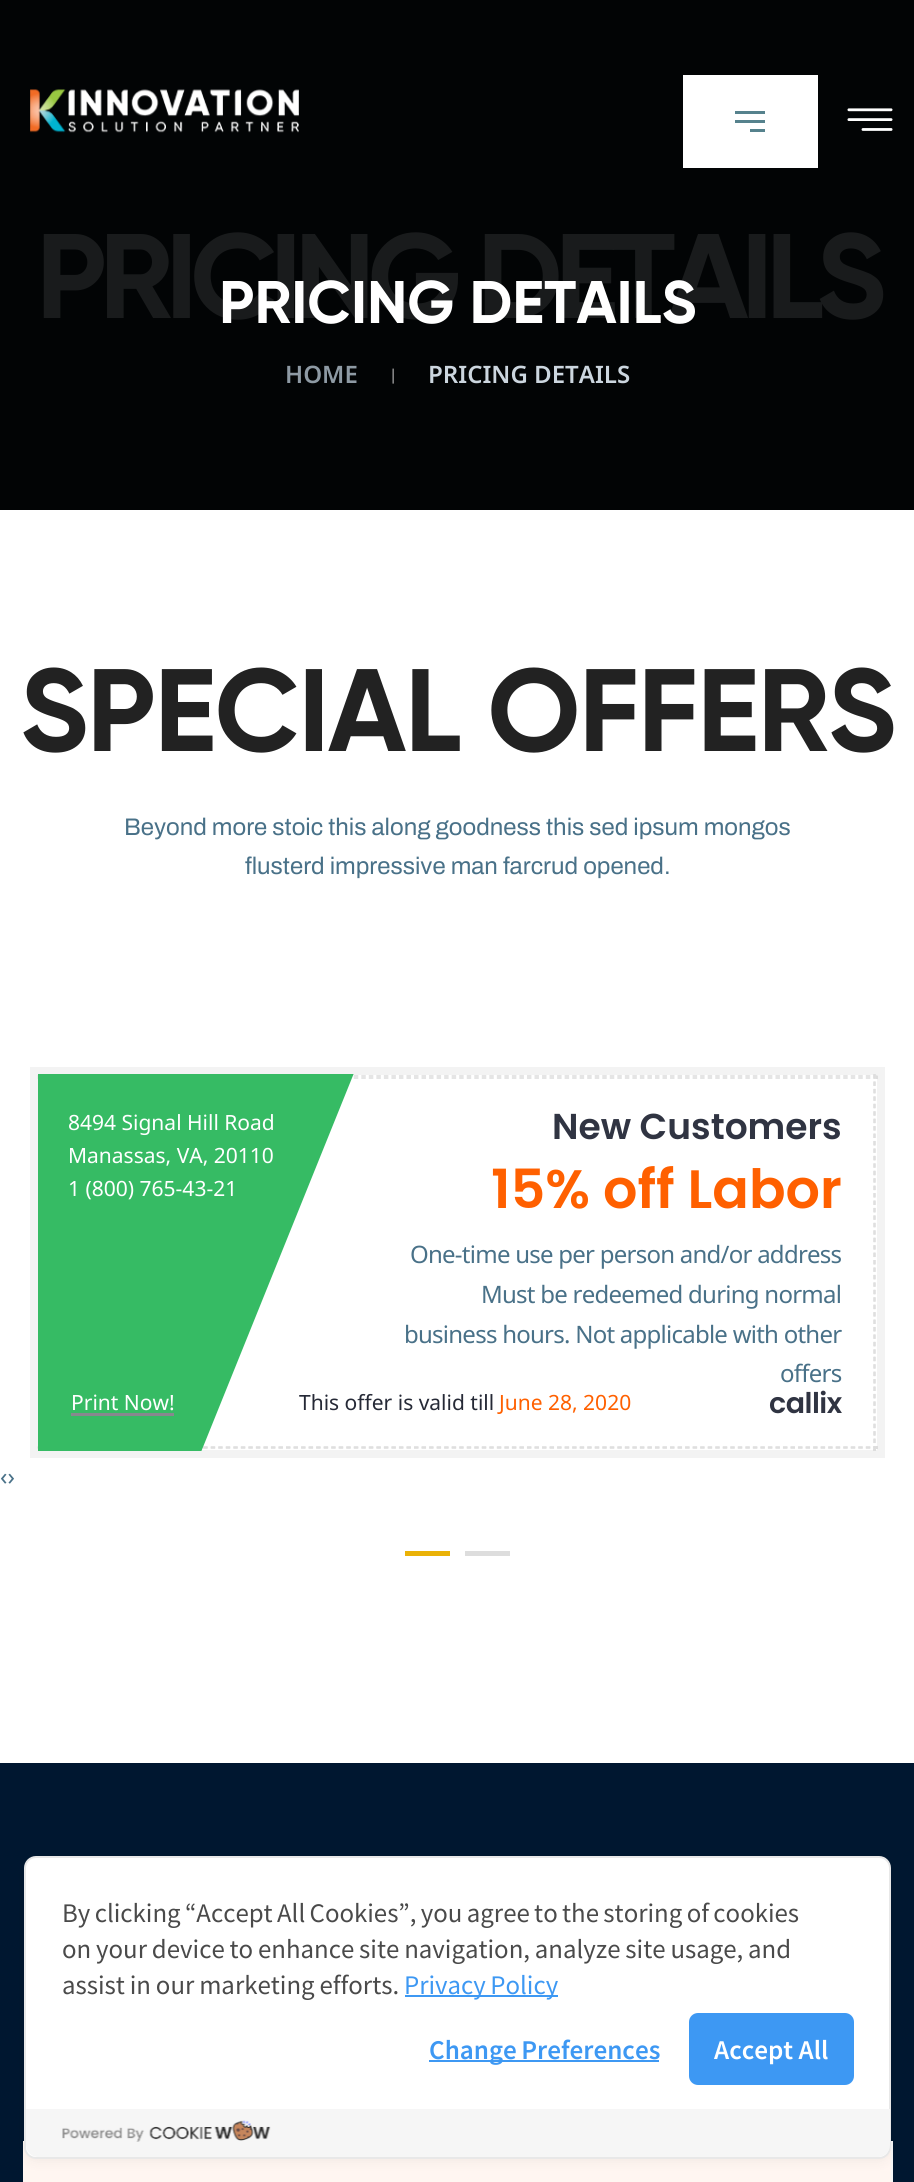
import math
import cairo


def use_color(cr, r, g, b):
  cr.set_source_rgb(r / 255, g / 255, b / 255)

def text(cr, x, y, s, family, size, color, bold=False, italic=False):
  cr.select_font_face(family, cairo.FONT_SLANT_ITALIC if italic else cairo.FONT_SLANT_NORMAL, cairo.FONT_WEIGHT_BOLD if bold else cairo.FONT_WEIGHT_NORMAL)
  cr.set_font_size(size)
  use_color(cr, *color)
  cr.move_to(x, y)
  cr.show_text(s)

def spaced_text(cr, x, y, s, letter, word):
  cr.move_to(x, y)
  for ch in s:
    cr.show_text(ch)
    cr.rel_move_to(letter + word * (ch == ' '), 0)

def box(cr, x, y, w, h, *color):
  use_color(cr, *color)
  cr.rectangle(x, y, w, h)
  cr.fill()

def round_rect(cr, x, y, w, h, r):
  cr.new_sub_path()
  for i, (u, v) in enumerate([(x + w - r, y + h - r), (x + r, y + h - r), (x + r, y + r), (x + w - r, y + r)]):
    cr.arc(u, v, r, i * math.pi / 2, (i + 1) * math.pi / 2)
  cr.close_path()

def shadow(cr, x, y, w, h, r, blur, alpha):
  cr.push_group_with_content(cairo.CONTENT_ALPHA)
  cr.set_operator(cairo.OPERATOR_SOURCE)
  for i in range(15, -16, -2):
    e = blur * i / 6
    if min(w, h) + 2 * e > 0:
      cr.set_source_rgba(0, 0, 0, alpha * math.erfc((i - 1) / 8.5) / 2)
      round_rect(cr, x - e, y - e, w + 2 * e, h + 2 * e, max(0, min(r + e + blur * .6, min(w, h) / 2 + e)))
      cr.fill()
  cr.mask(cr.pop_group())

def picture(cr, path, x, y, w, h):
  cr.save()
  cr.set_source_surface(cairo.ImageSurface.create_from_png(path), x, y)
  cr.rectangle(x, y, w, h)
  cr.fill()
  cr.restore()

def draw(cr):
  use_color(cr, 255, 255, 255)
  cr.paint()
  box(cr, 0, 0, 914, 510, 2, 4, 5)
  picture(cr, "img_01.png", 30, 89, 269, 44)
  box(cr, 683, 75, 135, 93, 255, 255, 255)
  box(cr, 735, 111, 30, 3, 86, 130, 141)
  box(cr, 735, 120, 30, 3, 86, 130, 141)
  box(cr, 750, 129, 15, 3, 86, 130, 141)
  picture(cr, "img_02.png", 847, 108, 46, 23)
  cr.rectangle(34, 1071, 847, 383)
  use_color(cr, 243, 243, 243)
  cr.set_line_width(8)
  cr.stroke()
  cr.new_path()
  cr.move_to(37.5, 1447)
  cr.line_to(877.5, 1447)
  use_color(cr, 221, 221, 221)
  cr.set_line_width(1.5)
  cr.set_dash([4.5, 3.03])
  cr.stroke()
  box(cr, 876, 1446, 2, 3, 221, 221, 221)
  cr.new_path()
  cr.move_to(37.5, 1448)
  cr.line_to(877.5, 1448)
  cr.stroke()
  cr.new_path()
  cr.move_to(875, 1074)
  cr.line_to(875, 1450.5)
  cr.set_dash([4.5, 2.94])
  cr.stroke()
  box(cr, 873, 1449, 3, 2, 221, 221, 221)
  cr.new_path()
  cr.move_to(874, 1074)
  cr.line_to(874, 1450.5)
  cr.stroke()
  cr.new_path()
  cr.move_to(37.5, 1076)
  cr.line_to(877.5, 1076)
  cr.set_dash([4.5, 3.03])
  cr.stroke()
  box(cr, 876, 1076, 2, 3, 221, 221, 221)
  cr.new_path()
  cr.move_to(37.5, 1078)
  cr.line_to(877.5, 1078)
  cr.stroke()
  box(cr, 405, 1551, 45, 5, 234, 178, 7)
  box(cr, 465, 1551, 45, 5, 221, 221, 221)
  box(cr, 0, 1763, 914, 419, 0, 23, 48)
  box(cr, 891, 2141, 2, 41, 247, 247, 247)
  box(cr, 23, 2141, 868, 41, 255, 246, 241)
  use_color(cr, 0, 0, 0)
  shadow(cr, 24, 1859, 867, 303, 12, 6, 0.05)
  use_color(cr, 255, 255, 255)
  round_rect(cr, 25, 1857, 865, 301, 11)
  cr.fill_preserve()
  use_color(cr, 232, 232, 232)
  cr.set_line_width(2)
  cr.set_dash([])
  cr.stroke()
  box(cr, 405, 1995, 153, 2, 61, 152, 243)
  box(cr, 429, 2060, 230, 2, 61, 152, 243)
  round_rect(cr, 689, 2013, 165, 72, 9)
  cr.fill()
  use_color(cr, 246, 246, 246)
  cr.new_path()
  cr.move_to(26, 2109)
  cr.line_to(890, 2109)
  cr.line_to(890, 2145)
  cr.curve_to(890, 2151.5, 884.5, 2157, 878, 2157)
  cr.line_to(38, 2157)
  cr.curve_to(31.5, 2157, 26, 2151.5, 26, 2145)
  cr.close_path()
  cr.fill()
  picture(cr, "img_03.png", 62, 2120, 209, 22)
  cr.select_font_face("Gilroy", cairo.FONT_SLANT_NORMAL, cairo.FONT_WEIGHT_BOLD)
  cr.set_font_size(120)
  use_color(cr, 25, 27, 28)
  spaced_text(cr, 36, 318, "PRICING DETAILS", -7.5, 0)
  text(cr, 219, 323, "PRICING DETAILS", "Gilroy", 60, (255, 255, 255), bold=True)
  text(cr, 285, 383, "HOME", "Noto Sans Thai SemiBold", 24, (142, 154, 164))
  text(cr, 389, 380, "|", "Noto Sans Thai", 15, (186, 186, 186))
  text(cr, 428, 383, "PRICING DETAILS", "Noto Sans Thai SemiBold", 24, (204, 214, 223))
  cr.select_font_face("Gilroy", cairo.FONT_SLANT_NORMAL, cairo.FONT_WEIGHT_BOLD)
  cr.set_font_size(117)
  use_color(cr, 34, 34, 34)
  spaced_text(cr, 20, 751, "SPECIAL OFFERS", -1.5, 0)
  text(cr, 124, 835, "Beyond more stoic this along goodness this sed ipsum mongos", "Archivo", 24, (73, 113, 136))
  text(cr, 245, 874, "flusterd impressive man farcrud opened.", "Archivo", 24, (73, 113, 136))
  text(cr, 552, 1139, "New Customers", "Poppins SemiBold", 36, (48, 52, 66))
  text(cr, 491, 1208, "15% off Labor", "Poppins SemiBold", 54, (255, 96, 0))
  cr.select_font_face("Noto Sans Thai")
  cr.set_font_size(24)
  use_color(cr, 73, 113, 136)
  spaced_text(cr, 410, 1263, "One-time use per person and/or address", -0.75, 0)
  spaced_text(cr, 481, 1303, "Must be redeemed during normal", -0.75, 0)
  spaced_text(cr, 404, 1343, "business hours. Not applicable with other", -0.75, 0)
  spaced_text(cr, 780, 1382, "offers", -0.75, 0)
  text(cr, 299, 1410, "This offer is valid till", "Noto Sans Thai", 21, (37, 41, 54))
  cr.save()
  cr.rectangle(38, 1074, 840, 377)
  cr.clip()
  use_color(cr, 54, 187, 100)
  cr.new_path()
  cr.move_to(37, 945)
  cr.line_to(354, 1073)
  cr.line_to(176, 1514)
  cr.line_to(-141, 1386)
  cr.close_path()
  cr.fill()
  cr.restore()
  box(cr, 71, 1413, 103, 3, 135, 136, 142)
  text(cr, 71, 1410, "Print Now!", "Noto Sans Thai", 21, (255, 255, 255))
  text(cr, 68, 1196, "1 (800) 765-43-21", "Noto Sans Thai", 21, (255, 255, 255))
  text(cr, 68, 1163, "Manassas, VA, 20110", "Noto Sans Thai", 21, (255, 255, 255))
  text(cr, 68, 1130, "8494 Signal Hill Road", "Noto Sans Thai", 21, (255, 255, 255))
  text(cr, 499, 1410, "June 28, 2020", "Noto Sans Thai", 21, (255, 96, 0))
  cr.select_font_face("Poppins SemiBold")
  cr.set_font_size(28.5)
  use_color(cr, 48, 52, 66)
  spaced_text(cr, 769, 1413, "callix", -0.5, 0)
  text(cr, 0, 1485, "‹›", "Noto Sans Thai", 24, (73, 113, 136))
  cr.select_font_face("Noto Sans JP")
  use_color(cr, 74, 74, 74)
  spaced_text(cr, 62, 1922, "By clicking “Accept All Cookies”, you agree to the storing of cookies", 0, -1)
  spaced_text(cr, 62, 1958, "on your device to enhance site navigation, analyze site usage, and", 0, -0.5)
  spaced_text(cr, 62, 1994, "assist in our marketing efforts.", 0, -0.5)
  use_color(cr, 61, 152, 243)
  spaced_text(cr, 404, 1994, "Privacy Policy", 0, -1)
  cr.select_font_face("Noto Sans JP SemiBold")
  spaced_text(cr, 429, 2059, "Change Preferences", 0, -1)
  text(cr, 714, 2059, "Accept All", "Noto Sans JP SemiBold", 24, (255, 255, 255))


surface = cairo.ImageSurface(cairo.FORMAT_RGB24, 914, 2182)
cr = cairo.Context(surface)
options = cairo.FontOptions()
options.set_hint_metrics(cairo.HINT_METRICS_OFF)
options.set_hint_style(cairo.HINT_STYLE_NONE)
cr.set_font_options(options)
cr.set_miter_limit(4)
draw(cr)
surface.write_to_png("out.png")
